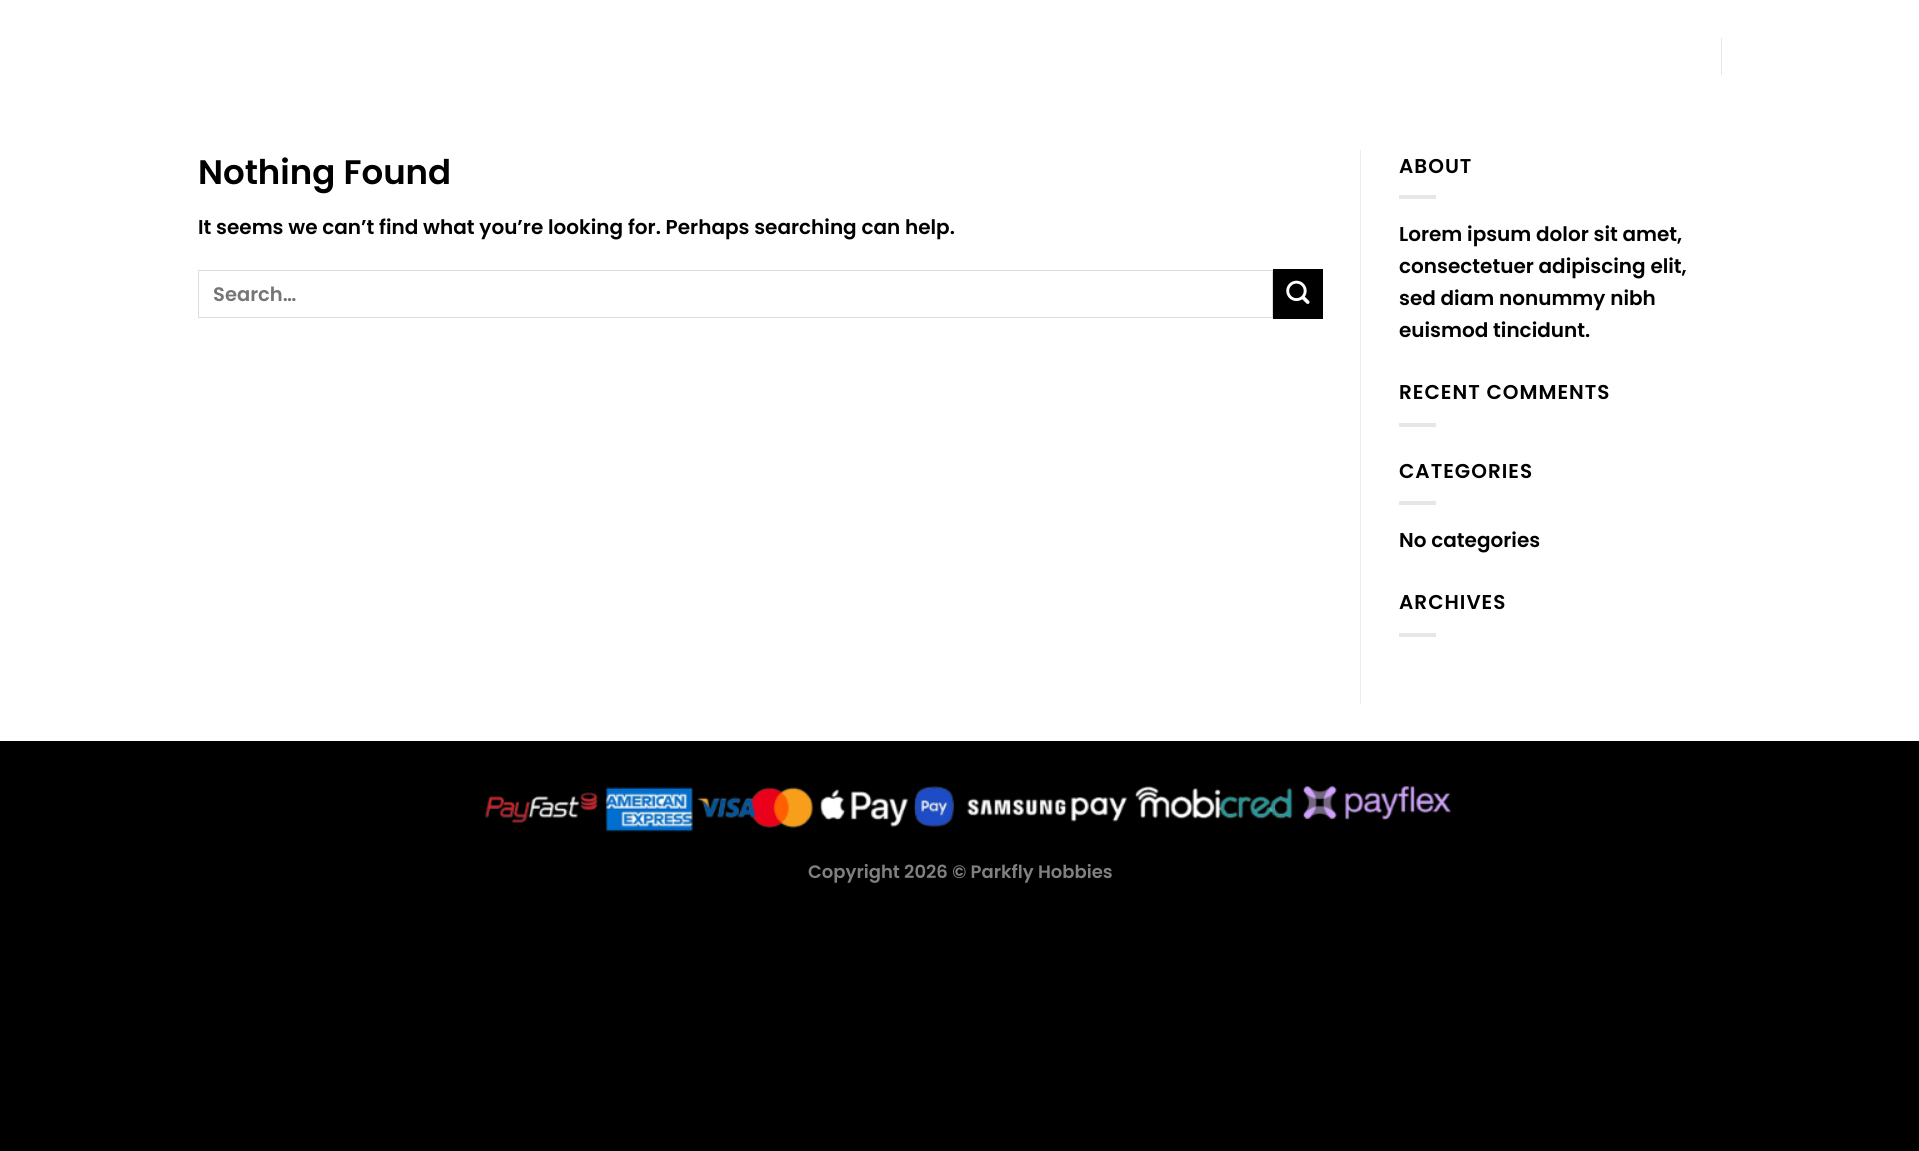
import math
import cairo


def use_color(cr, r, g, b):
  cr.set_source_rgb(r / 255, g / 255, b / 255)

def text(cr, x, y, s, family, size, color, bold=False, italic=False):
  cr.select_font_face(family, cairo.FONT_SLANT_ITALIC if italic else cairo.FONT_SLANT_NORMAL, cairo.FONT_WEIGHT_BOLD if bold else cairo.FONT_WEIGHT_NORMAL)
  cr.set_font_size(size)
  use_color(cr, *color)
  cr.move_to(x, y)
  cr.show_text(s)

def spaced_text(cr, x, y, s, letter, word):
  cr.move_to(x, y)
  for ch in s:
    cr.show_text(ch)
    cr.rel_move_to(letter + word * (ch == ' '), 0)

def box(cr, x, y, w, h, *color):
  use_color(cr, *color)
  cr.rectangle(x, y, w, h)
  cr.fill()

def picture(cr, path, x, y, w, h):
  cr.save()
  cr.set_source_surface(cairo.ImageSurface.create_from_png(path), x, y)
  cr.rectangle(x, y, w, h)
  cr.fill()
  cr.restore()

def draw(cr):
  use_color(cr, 0, 0, 0)
  cr.paint()
  box(cr, 0, 0, 1919, 741, 255, 255, 255)
  box(cr, 1721, 38, 1, 37, 230, 230, 230)
  cr.rectangle(198.5, 270.5, 1074, 47)
  use_color(cr, 221, 221, 221)
  cr.set_line_width(1)
  cr.stroke()
  box(cr, 1273, 269, 50, 50, 0, 0, 0)
  picture(cr, "img_01.png", 1286, 280, 24, 24)
  box(cr, 1360, 150, 1, 554, 236, 236, 236)
  box(cr, 1399, 195, 37, 4, 230, 230, 230)
  box(cr, 1399, 423, 37, 4, 230, 230, 230)
  box(cr, 1399, 501, 37, 4, 230, 230, 230)
  box(cr, 1399, 633, 37, 4, 230, 230, 230)
  picture(cr, "img_02.png", 485, 786, 967, 46)
  text(cr, 198, 184, "Nothing Found", "Poppins SemiBold", 34, (0, 0, 0))
  text(cr, 198, 234, "It seems we can’t find what you’re looking for. Perhaps searching can help.", "Poppins SemiBold", 20, (0, 0, 0))
  text(cr, 213, 301, "Search…", "Poppins SemiBold", 19.5, (117, 117, 117))
  cr.set_font_size(20)
  use_color(cr, 0, 0, 0)
  spaced_text(cr, 1399, 173, "ABOUT", 1, 0)
  text(cr, 1399, 241, "Lorem ipsum dolor sit amet,", "Poppins SemiBold", 20, (0, 0, 0))
  text(cr, 1399, 273, "consectetuer adipiscing elit,", "Poppins SemiBold", 20, (0, 0, 0))
  text(cr, 1399, 305, "sed diam nonummy nibh", "Poppins SemiBold", 20, (0, 0, 0))
  text(cr, 1399, 337, "euismod tincidunt.", "Poppins SemiBold", 20, (0, 0, 0))
  spaced_text(cr, 1399, 399, "RECENT COMMENTS", 1, 0)
  spaced_text(cr, 1399, 478, "CATEGORIES", 1, 0)
  text(cr, 1399, 547, "No categories", "Poppins SemiBold", 20, (0, 0, 0))
  spaced_text(cr, 1399, 609, "ARCHIVES", 1, 0)
  text(cr, 808, 878, "Copyright 2026 © Parkfly Hobbies", "Poppins SemiBold", 18, (128, 128, 128))


surface = cairo.ImageSurface(cairo.FORMAT_RGB24, 1919, 1151)
cr = cairo.Context(surface)
options = cairo.FontOptions()
options.set_hint_metrics(cairo.HINT_METRICS_OFF)
options.set_hint_style(cairo.HINT_STYLE_NONE)
cr.set_font_options(options)
cr.set_miter_limit(4)
draw(cr)
surface.write_to_png("out.png")
